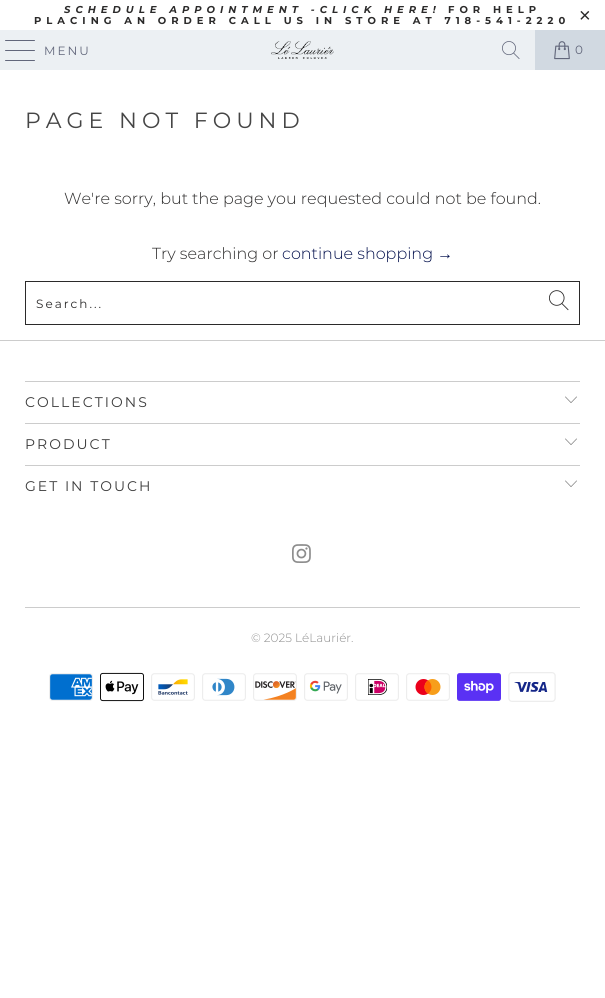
import math
import cairo


def use_color(cr, r, g, b):
  cr.set_source_rgb(r / 255, g / 255, b / 255)

def text(cr, x, y, s, family, size, color, bold=False, italic=False):
  cr.select_font_face(family, cairo.FONT_SLANT_ITALIC if italic else cairo.FONT_SLANT_NORMAL, cairo.FONT_WEIGHT_BOLD if bold else cairo.FONT_WEIGHT_NORMAL)
  cr.set_font_size(size)
  use_color(cr, *color)
  cr.move_to(x, y)
  cr.show_text(s)

def spaced_text(cr, x, y, s, letter, word):
  cr.move_to(x, y)
  for ch in s:
    cr.show_text(ch)
    cr.rel_move_to(letter + word * (ch == ' '), 0)

def box(cr, x, y, w, h, *color):
  use_color(cr, *color)
  cr.rectangle(x, y, w, h)
  cr.fill()

def round_rect(cr, x, y, w, h, r):
  cr.new_sub_path()
  for i, (u, v) in enumerate([(x + w - r, y + h - r), (x + r, y + h - r), (x + r, y + r), (x + w - r, y + r)]):
    cr.arc(u, v, r, i * math.pi / 2, (i + 1) * math.pi / 2)
  cr.close_path()

def picture(cr, path, x, y, w, h):
  cr.save()
  cr.set_source_surface(cairo.ImageSurface.create_from_png(path), x, y)
  cr.rectangle(x, y, w, h)
  cr.fill()
  cr.restore()

def draw(cr):
  use_color(cr, 255, 255, 255)
  cr.paint()
  box(cr, 0, 30, 535, 40, 236, 240, 243)
  use_color(cr, 98, 103, 123)
  round_rect(cr, 5, 40, 30, 1, 0.5)
  cr.fill()
  round_rect(cr, 5, 50, 30, 1, 0.5)
  cr.fill()
  round_rect(cr, 5, 60, 30, 1, 0.5)
  cr.fill()
  picture(cr, "img_01.png", 271, 41, 63, 18)
  picture(cr, "img_02.png", 502, 41, 18, 18)
  box(cr, 535, 30, 70, 40, 209, 217, 225)
  picture(cr, "img_03.png", 554, 41, 16, 19)
  cr.rectangle(25.5, 281.5, 554, 43)
  use_color(cr, 43, 42, 42)
  cr.set_line_width(1)
  cr.stroke()
  picture(cr, "img_04.png", 549, 290, 20, 21)
  box(cr, 0, 340, 605, 1, 204, 204, 204)
  box(cr, 25, 381, 555, 1, 204, 204, 204)
  picture(cr, "img_05.png", 565, 396, 12, 7)
  box(cr, 25, 423, 555, 1, 204, 204, 204)
  picture(cr, "img_05.png", 565, 438, 12, 7)
  box(cr, 25, 465, 555, 1, 204, 204, 204)
  picture(cr, "img_05.png", 565, 480, 12, 7)
  picture(cr, "img_06.png", 292, 544, 19, 19)
  box(cr, 25, 607, 555, 1, 204, 204, 204)
  picture(cr, "img_07.png", 49, 673, 44, 28)
  picture(cr, "img_08.png", 100, 672, 44, 30)
  picture(cr, "img_09.png", 151, 673, 44, 28)
  picture(cr, "img_10.png", 202, 673, 44, 28)
  picture(cr, "img_11.png", 253, 673, 44, 28)
  picture(cr, "img_12.png", 304, 673, 44, 28)
  picture(cr, "img_13.png", 355, 673, 44, 28)
  picture(cr, "img_14.png", 406, 673, 44, 28)
  picture(cr, "img_15.png", 457, 673, 44, 28)
  picture(cr, "img_16.png", 508, 672, 48, 30)
  cr.select_font_face("Montserrat", cairo.FONT_SLANT_ITALIC, cairo.FONT_WEIGHT_BOLD)
  cr.set_font_size(10)
  use_color(cr, 43, 42, 42)
  spaced_text(cr, 64, 13, "SCHEDULE APPOINTMENT -CLICK HERE!", 5, 0)
  cr.select_font_face("Montserrat", cairo.FONT_SLANT_NORMAL, cairo.FONT_WEIGHT_BOLD)
  spaced_text(cr, 448, 13, "FOR HELP", 5, 0)
  spaced_text(cr, 34, 24, "PLACING AN ORDER CALL US IN STORE AT 718-541-2220", 5, 0)
  cr.select_font_face("Liberation Sans")
  cr.set_font_size(20)
  spaced_text(cr, 579, 22, "×", 5, 0)
  cr.select_font_face("Montserrat")
  cr.set_font_size(12)
  use_color(cr, 98, 103, 123)
  spaced_text(cr, 44, 55, "MENU", 2, 0)
  spaced_text(cr, 575, 54, "0", 1, 0)
  cr.set_font_size(22)
  use_color(cr, 69, 69, 69)
  spaced_text(cr, 25, 128, "PAGE NOT FOUND", 5, 0)
  text(cr, 64, 204, "We're sorry, but the page you requested could not be found.", "Montserrat Light", 16, (43, 42, 42))
  text(cr, 152, 259, "Try searching or", "Montserrat Light", 16, (43, 42, 42))
  text(cr, 282, 259, "continue shopping", "Montserrat Light", 16, (2, 15, 76))
  text(cr, 437, 259, "→", "Liberation Sans", 16, (2, 15, 76))
  cr.select_font_face("Montserrat")
  cr.set_font_size(12)
  use_color(cr, 43, 42, 42)
  spaced_text(cr, 36, 308, "Search...", 2, 0)
  cr.set_font_size(14)
  use_color(cr, 59, 59, 59)
  spaced_text(cr, 25, 407, "COLLECTIONS", 2, 0)
  spaced_text(cr, 25, 449, "PRODUCT", 2, 0)
  spaced_text(cr, 25, 491, "GET IN TOUCH", 2, 0)
  text(cr, 251, 642, "© 2025 LéLauriér", "Montserrat Light", 12, (141, 141, 141))
  text(cr, 351, 642, ".", "Montserrat Light", 12, (141, 141, 141))


surface = cairo.ImageSurface(cairo.FORMAT_RGB24, 605, 998)
cr = cairo.Context(surface)
options = cairo.FontOptions()
options.set_hint_metrics(cairo.HINT_METRICS_OFF)
options.set_hint_style(cairo.HINT_STYLE_NONE)
cr.set_font_options(options)
cr.set_miter_limit(4)
draw(cr)
surface.write_to_png("out.png")
